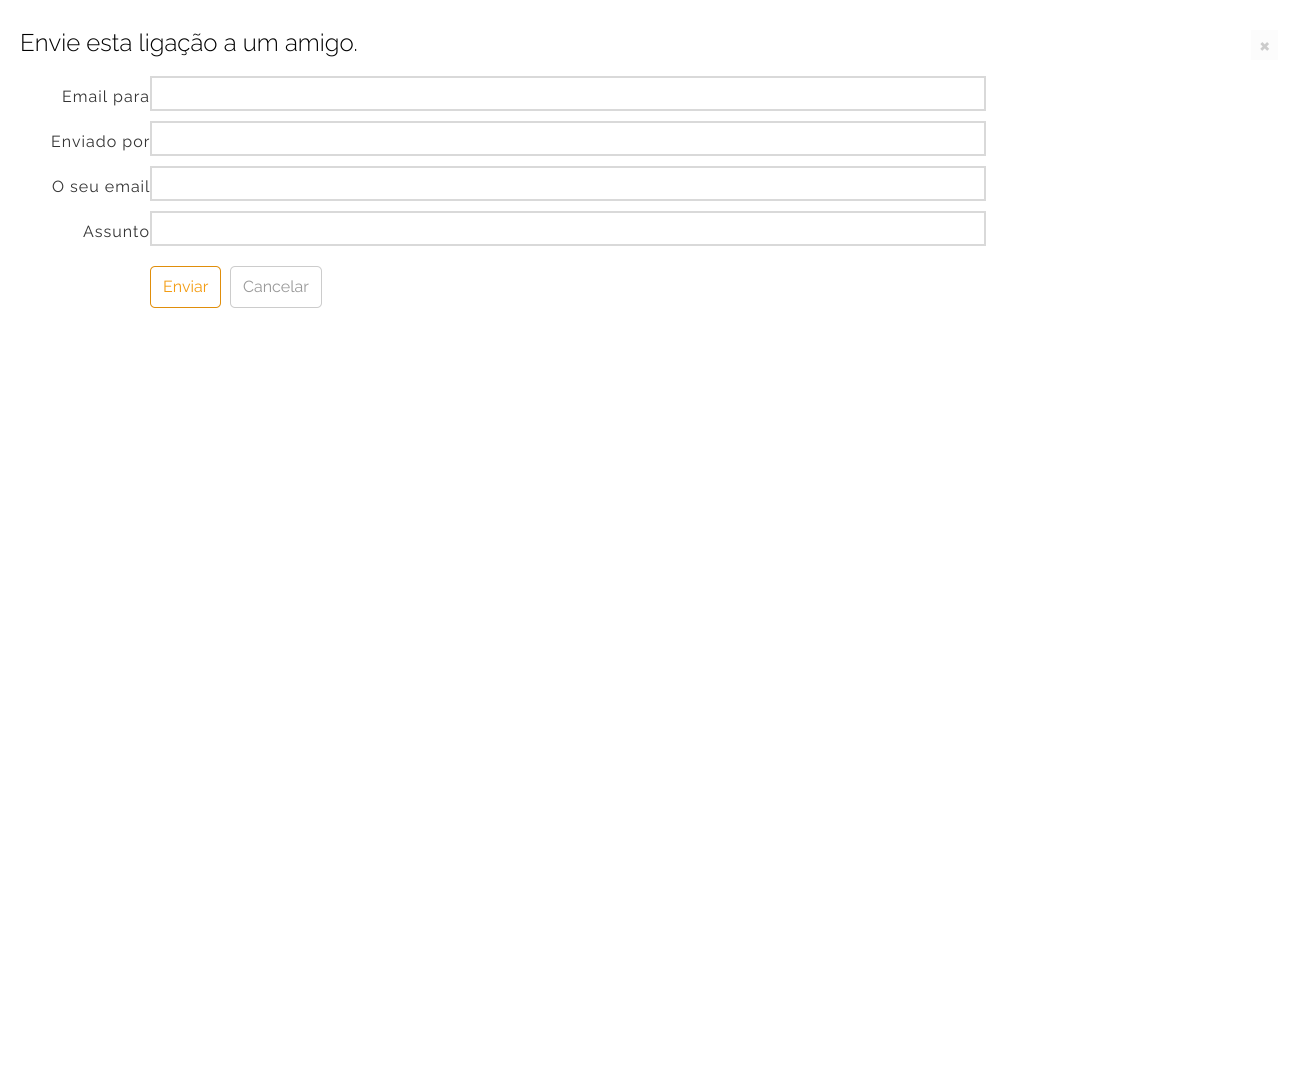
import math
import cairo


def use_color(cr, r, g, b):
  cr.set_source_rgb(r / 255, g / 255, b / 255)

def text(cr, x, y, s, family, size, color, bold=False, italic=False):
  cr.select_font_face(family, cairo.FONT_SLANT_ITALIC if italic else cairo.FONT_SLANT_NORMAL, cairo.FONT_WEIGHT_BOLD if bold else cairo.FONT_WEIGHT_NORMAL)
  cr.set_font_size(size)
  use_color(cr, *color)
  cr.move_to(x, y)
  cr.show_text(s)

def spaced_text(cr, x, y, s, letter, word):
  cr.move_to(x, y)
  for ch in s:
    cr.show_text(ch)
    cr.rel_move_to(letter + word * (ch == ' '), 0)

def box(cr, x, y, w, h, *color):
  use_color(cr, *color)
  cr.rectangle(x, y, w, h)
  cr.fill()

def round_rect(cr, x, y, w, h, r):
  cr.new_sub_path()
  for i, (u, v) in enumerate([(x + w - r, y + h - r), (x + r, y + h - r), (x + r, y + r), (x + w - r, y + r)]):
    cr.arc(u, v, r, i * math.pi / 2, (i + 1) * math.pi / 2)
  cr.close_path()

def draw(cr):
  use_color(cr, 255, 255, 255)
  cr.paint()
  box(cr, 1251, 30, 27, 30, 252, 252, 252)
  cr.rectangle(151, 77, 834, 33)
  use_color(cr, 217, 217, 217)
  cr.stroke()
  cr.rectangle(151, 122, 834, 33)
  cr.stroke()
  cr.rectangle(151, 167, 834, 33)
  cr.stroke()
  cr.rectangle(151, 212, 834, 33)
  cr.stroke()
  round_rect(cr, 150.5, 266.5, 70, 41, 4.5)
  use_color(cr, 224, 142, 11)
  cr.set_line_width(1)
  cr.stroke()
  round_rect(cr, 230.5, 266.5, 91, 41, 4.5)
  use_color(cr, 204, 204, 204)
  cr.stroke()
  text(cr, 20, 51, "Envie esta ligação a um amigo.", "Raleway Light", 24, (0, 0, 0))
  text(cr, 1259, 53, "×", "Raleway", 24, (204, 204, 204), bold=True)
  cr.select_font_face("Raleway")
  cr.set_font_size(16)
  use_color(cr, 51, 51, 51)
  spaced_text(cr, 62, 102, "Email para", 1, 0)
  spaced_text(cr, 51, 147, "Enviado por", 1, 0)
  spaced_text(cr, 52, 192, "O seu email", 1, 0)
  spaced_text(cr, 83, 237, "Assunto", 1, 0)
  text(cr, 163, 292, "Enviar", "Raleway", 16, (243, 156, 18))
  text(cr, 243, 292, "Cancelar", "Raleway", 16, (153, 153, 153))


surface = cairo.ImageSurface(cairo.FORMAT_RGB24, 1298, 1078)
cr = cairo.Context(surface)
options = cairo.FontOptions()
options.set_hint_metrics(cairo.HINT_METRICS_OFF)
options.set_hint_style(cairo.HINT_STYLE_NONE)
cr.set_font_options(options)
cr.set_miter_limit(4)
draw(cr)
surface.write_to_png("out.png")
